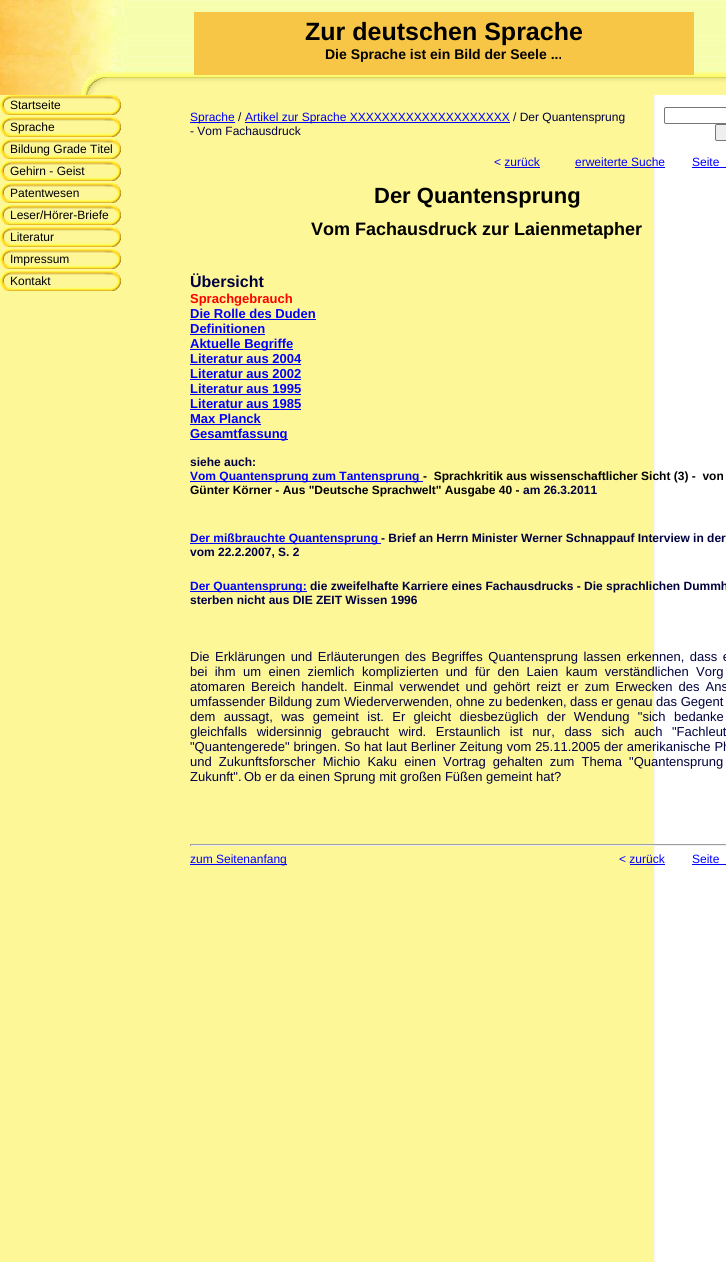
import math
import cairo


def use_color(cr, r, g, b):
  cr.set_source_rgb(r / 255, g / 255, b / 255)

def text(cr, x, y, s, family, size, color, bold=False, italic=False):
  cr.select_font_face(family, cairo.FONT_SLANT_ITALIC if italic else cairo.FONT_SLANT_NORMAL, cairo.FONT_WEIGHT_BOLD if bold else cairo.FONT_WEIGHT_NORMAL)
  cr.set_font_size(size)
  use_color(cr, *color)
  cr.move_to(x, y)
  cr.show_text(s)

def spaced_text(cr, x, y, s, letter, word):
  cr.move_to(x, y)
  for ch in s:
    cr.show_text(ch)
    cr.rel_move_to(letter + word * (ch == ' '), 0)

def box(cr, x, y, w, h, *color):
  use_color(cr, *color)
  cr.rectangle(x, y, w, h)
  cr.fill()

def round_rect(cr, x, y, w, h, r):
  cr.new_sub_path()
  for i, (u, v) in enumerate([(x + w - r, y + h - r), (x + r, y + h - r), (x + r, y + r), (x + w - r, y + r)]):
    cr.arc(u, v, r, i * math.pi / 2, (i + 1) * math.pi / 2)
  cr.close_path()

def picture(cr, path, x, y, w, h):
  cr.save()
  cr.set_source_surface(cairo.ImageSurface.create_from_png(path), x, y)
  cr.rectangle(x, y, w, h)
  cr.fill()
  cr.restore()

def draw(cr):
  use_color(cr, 255, 255, 255)
  cr.paint()
  picture(cr, "img_01.png", 0, 95, 656, 1167)
  picture(cr, "img_02.png", 0, 0, 726, 95)
  box(cr, 194, 12, 500, 63, 247, 198, 70)
  picture(cr, "img_03.png", 0, 95, 121, 20)
  picture(cr, "img_03.png", 0, 117, 121, 20)
  picture(cr, "img_03.png", 0, 139, 121, 20)
  picture(cr, "img_03.png", 0, 161, 121, 20)
  picture(cr, "img_03.png", 0, 183, 121, 20)
  picture(cr, "img_03.png", 0, 205, 121, 20)
  picture(cr, "img_03.png", 0, 227, 121, 20)
  picture(cr, "img_03.png", 0, 249, 121, 20)
  picture(cr, "img_03.png", 0, 271, 121, 20)
  box(cr, 190, 122, 45, 1, 0, 0, 255)
  box(cr, 245, 122, 265, 1, 0, 0, 255)
  round_rect(cr, 664.5, 107.5, 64, 16, 1.5)
  use_color(cr, 118, 118, 118)
  cr.set_line_width(1)
  cr.stroke()
  use_color(cr, 239, 239, 239)
  round_rect(cr, 715.5, 124.5, 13, 16, 1.5)
  cr.fill_preserve()
  use_color(cr, 118, 118, 118)
  cr.stroke()
  box(cr, 505, 167, 35, 1, 0, 0, 255)
  box(cr, 575, 167, 90, 1, 0, 0, 255)
  box(cr, 692, 167, 34, 1, 0, 0, 255)
  box(cr, 190, 319, 126, 1, 0, 0, 255)
  box(cr, 190, 334, 75, 1, 0, 0, 255)
  box(cr, 190, 349, 103, 1, 0, 0, 255)
  box(cr, 190, 364, 111, 1, 0, 0, 255)
  box(cr, 190, 379, 111, 1, 0, 0, 255)
  box(cr, 190, 394, 111, 1, 0, 0, 255)
  box(cr, 190, 409, 111, 1, 0, 0, 255)
  box(cr, 190, 424, 71, 1, 0, 0, 255)
  box(cr, 190, 439, 98, 1, 0, 0, 255)
  box(cr, 190, 481, 233, 1, 0, 0, 255)
  box(cr, 190, 543, 191, 1, 0, 0, 255)
  box(cr, 190, 591, 117, 1, 0, 0, 255)
  box(cr, 190, 844, 536, 1, 159, 159, 159)
  box(cr, 190, 845, 536, 1, 238, 238, 238)
  box(cr, 190, 844, 1, 2, 159, 159, 159)
  box(cr, 190, 864, 97, 1, 0, 0, 255)
  box(cr, 630, 864, 35, 1, 0, 0, 255)
  box(cr, 692, 864, 34, 1, 0, 0, 255)
  text(cr, 305, 40, "Zur deutschen Sprache", "Liberation Sans", 25, (0, 0, 0), bold=True)
  text(cr, 325, 59, "Die Sprache ist ein Bild der Seele ...", "Liberation Sans", 14, (0, 0, 0), bold=True)
  text(cr, 10, 109, "Startseite", "Liberation Sans", 12, (0, 0, 0))
  text(cr, 10, 131, "Sprache", "Liberation Sans", 12, (0, 0, 0))
  text(cr, 10, 153, "Bildung Grade Titel", "Liberation Sans", 12, (0, 0, 0))
  text(cr, 10, 175, "Gehirn - Geist", "Liberation Sans", 12, (0, 0, 0))
  text(cr, 10, 197, "Patentwesen", "Liberation Sans", 12, (0, 0, 0))
  text(cr, 10, 219, "Leser/Hörer-Briefe", "Liberation Sans", 12, (0, 0, 0))
  text(cr, 10, 241, "Literatur", "Liberation Sans", 12, (0, 0, 0))
  text(cr, 10, 263, "Impressum", "Liberation Sans", 12, (0, 0, 0))
  text(cr, 10, 285, "Kontakt", "Liberation Sans", 12, (0, 0, 0))
  text(cr, 190, 121, "Sprache", "Liberation Sans", 12, (0, 0, 255))
  text(cr, 238, 121, "/", "Liberation Sans", 12, (0, 0, 64))
  text(cr, 245, 121, "Artikel zur Sprache XXXXXXXXXXXXXXXXXXXX", "Liberation Sans", 12, (0, 0, 255))
  text(cr, 513, 121, "/ Der Quantensprung", "Liberation Sans", 12, (0, 0, 64))
  text(cr, 190, 135, "- Vom Fachausdruck", "Liberation Sans", 12, (0, 0, 64))
  text(cr, 494, 166, "< zurück", "Liberation Sans", 12, (0, 0, 255))
  text(cr, 575, 166, "erweiterte Suche", "Liberation Sans", 12, (0, 0, 255))
  text(cr, 692, 166, "Seite", "Liberation Sans", 12, (0, 0, 255))
  text(cr, 374, 203, "Der Quantensprung", "Liberation Sans", 22, (0, 0, 0), bold=True)
  text(cr, 311, 235, "Vom Fachausdruck zur Laienmetapher", "Liberation Sans", 18, (0, 0, 0), bold=True)
  text(cr, 190, 287, "Übersicht", "Liberation Sans", 16, (0, 0, 64), bold=True)
  text(cr, 190, 303, "Sprachgebrauch", "Liberation Sans", 13, (255, 0, 0), bold=True)
  text(cr, 190, 318, "Die Rolle des Duden", "Liberation Sans", 13, (0, 0, 255), bold=True)
  text(cr, 190, 333, "Definitionen", "Liberation Sans", 13, (0, 0, 255), bold=True)
  text(cr, 190, 348, "Aktuelle Begriffe", "Liberation Sans", 13, (0, 0, 255), bold=True)
  text(cr, 190, 363, "Literatur aus 2004", "Liberation Sans", 13, (0, 0, 255), bold=True)
  text(cr, 190, 378, "Literatur aus 2002", "Liberation Sans", 13, (0, 0, 255), bold=True)
  text(cr, 190, 393, "Literatur aus 1995", "Liberation Sans", 13, (0, 0, 255), bold=True)
  text(cr, 190, 408, "Literatur aus 1985", "Liberation Sans", 13, (0, 0, 255), bold=True)
  text(cr, 190, 423, "Max Planck", "Liberation Sans", 13, (0, 0, 255), bold=True)
  text(cr, 190, 438, "Gesamtfassung", "Liberation Sans", 13, (0, 0, 255), bold=True)
  text(cr, 190, 466, "siehe auch:", "Liberation Sans", 12, (0, 0, 64), bold=True)
  text(cr, 190, 480, "Vom Quantensprung zum Tantensprung", "Liberation Sans", 12, (0, 0, 255), bold=True)
  text(cr, 423, 480, "-  Sprachkritik aus wissenschaftlicher Sicht (3) -  von", "Liberation Sans", 12, (0, 0, 0), bold=True)
  text(cr, 190, 494, "Günter Körner - Aus \"Deutsche Sprachwelt\" Ausgabe 40 -", "Liberation Sans", 12, (0, 0, 0), bold=True)
  text(cr, 523, 494, "am 26.3.2011", "Liberation Sans", 12, (0, 0, 64), bold=True)
  text(cr, 190, 542, "Der mißbrauchte Quantensprung", "Liberation Sans", 12, (0, 0, 255), bold=True)
  text(cr, 381, 542, "- Brief an Herrn Minister Werner Schnappauf Interview in der", "Liberation Sans", 12, (0, 0, 64), bold=True)
  text(cr, 190, 556, "vom 22.2.2007, S. 2", "Liberation Sans", 12, (0, 0, 64), bold=True)
  text(cr, 190, 590, "Der Quantensprung:", "Liberation Sans", 12, (0, 0, 255), bold=True)
  text(cr, 310, 590, "die zweifelhafte Karriere eines Fachausdrucks - Die sprachlichen Dummh", "Liberation Sans", 12, (0, 0, 64), bold=True)
  text(cr, 190, 604, "sterben nicht aus DIE ZEIT Wissen 1996", "Liberation Sans", 12, (0, 0, 64), bold=True)
  cr.select_font_face("Liberation Sans")
  cr.set_font_size(13)
  spaced_text(cr, 190, 661, "Die Erklärungen und Erläuterungen des Begriffes Quantensprung lassen erkennen, dass e", 0, 1.9)
  spaced_text(cr, 190, 676, "bei ihm um einen ziemlich komplizierten und für den Laien kaum verständlichen Vorg", 0, 3.75)
  spaced_text(cr, 190, 691, "atomaren Bereich handelt. Einmal verwendet und gehört reizt er zum Erwecken des Ans", 0, 2.5)
  text(cr, 190, 706, "umfassender Bildung zum Wiederverwenden, ohne zu bedenken, dass er genau das Gegent", "Liberation Sans", 13, (0, 0, 64))
  spaced_text(cr, 190, 721, "dem aussagt, was gemeint ist. Er gleicht diesbezüglich der Wendung \"sich bedanke", 0, 4.75)
  spaced_text(cr, 190, 736, "gleichfalls widersinnig gebraucht wird. Erstaunlich ist nur, dass sich auch \"Fachleut", 0, 6)
  spaced_text(cr, 190, 751, "\"Quantengerede\" bringen. So hat laut Berliner Zeitung vom 25.11.2005 der amerikanische Ph", 0, 0.25)
  spaced_text(cr, 190, 766, "und Zukunftsforscher Michio Kaku einen Vortrag gehalten zum Thema \"Quantensprung", 0, 3.5)
  text(cr, 190, 781, "Zukunft\".", "Liberation Sans", 13, (0, 0, 64))
  text(cr, 244, 781, "Ob er da einen Sprung mit großen Füßen gemeint hat?", "Liberation Sans", 13, (0, 0, 64))
  text(cr, 190, 863, "zum Seitenanfang", "Liberation Sans", 12, (0, 0, 255))
  text(cr, 619, 863, "< zurück", "Liberation Sans", 12, (0, 0, 255))
  text(cr, 692, 863, "Seite", "Liberation Sans", 12, (0, 0, 255))


surface = cairo.ImageSurface(cairo.FORMAT_RGB24, 726, 1262)
cr = cairo.Context(surface)
options = cairo.FontOptions()
options.set_hint_metrics(cairo.HINT_METRICS_OFF)
options.set_hint_style(cairo.HINT_STYLE_NONE)
cr.set_font_options(options)
cr.set_miter_limit(4)
draw(cr)
surface.write_to_png("out.png")
